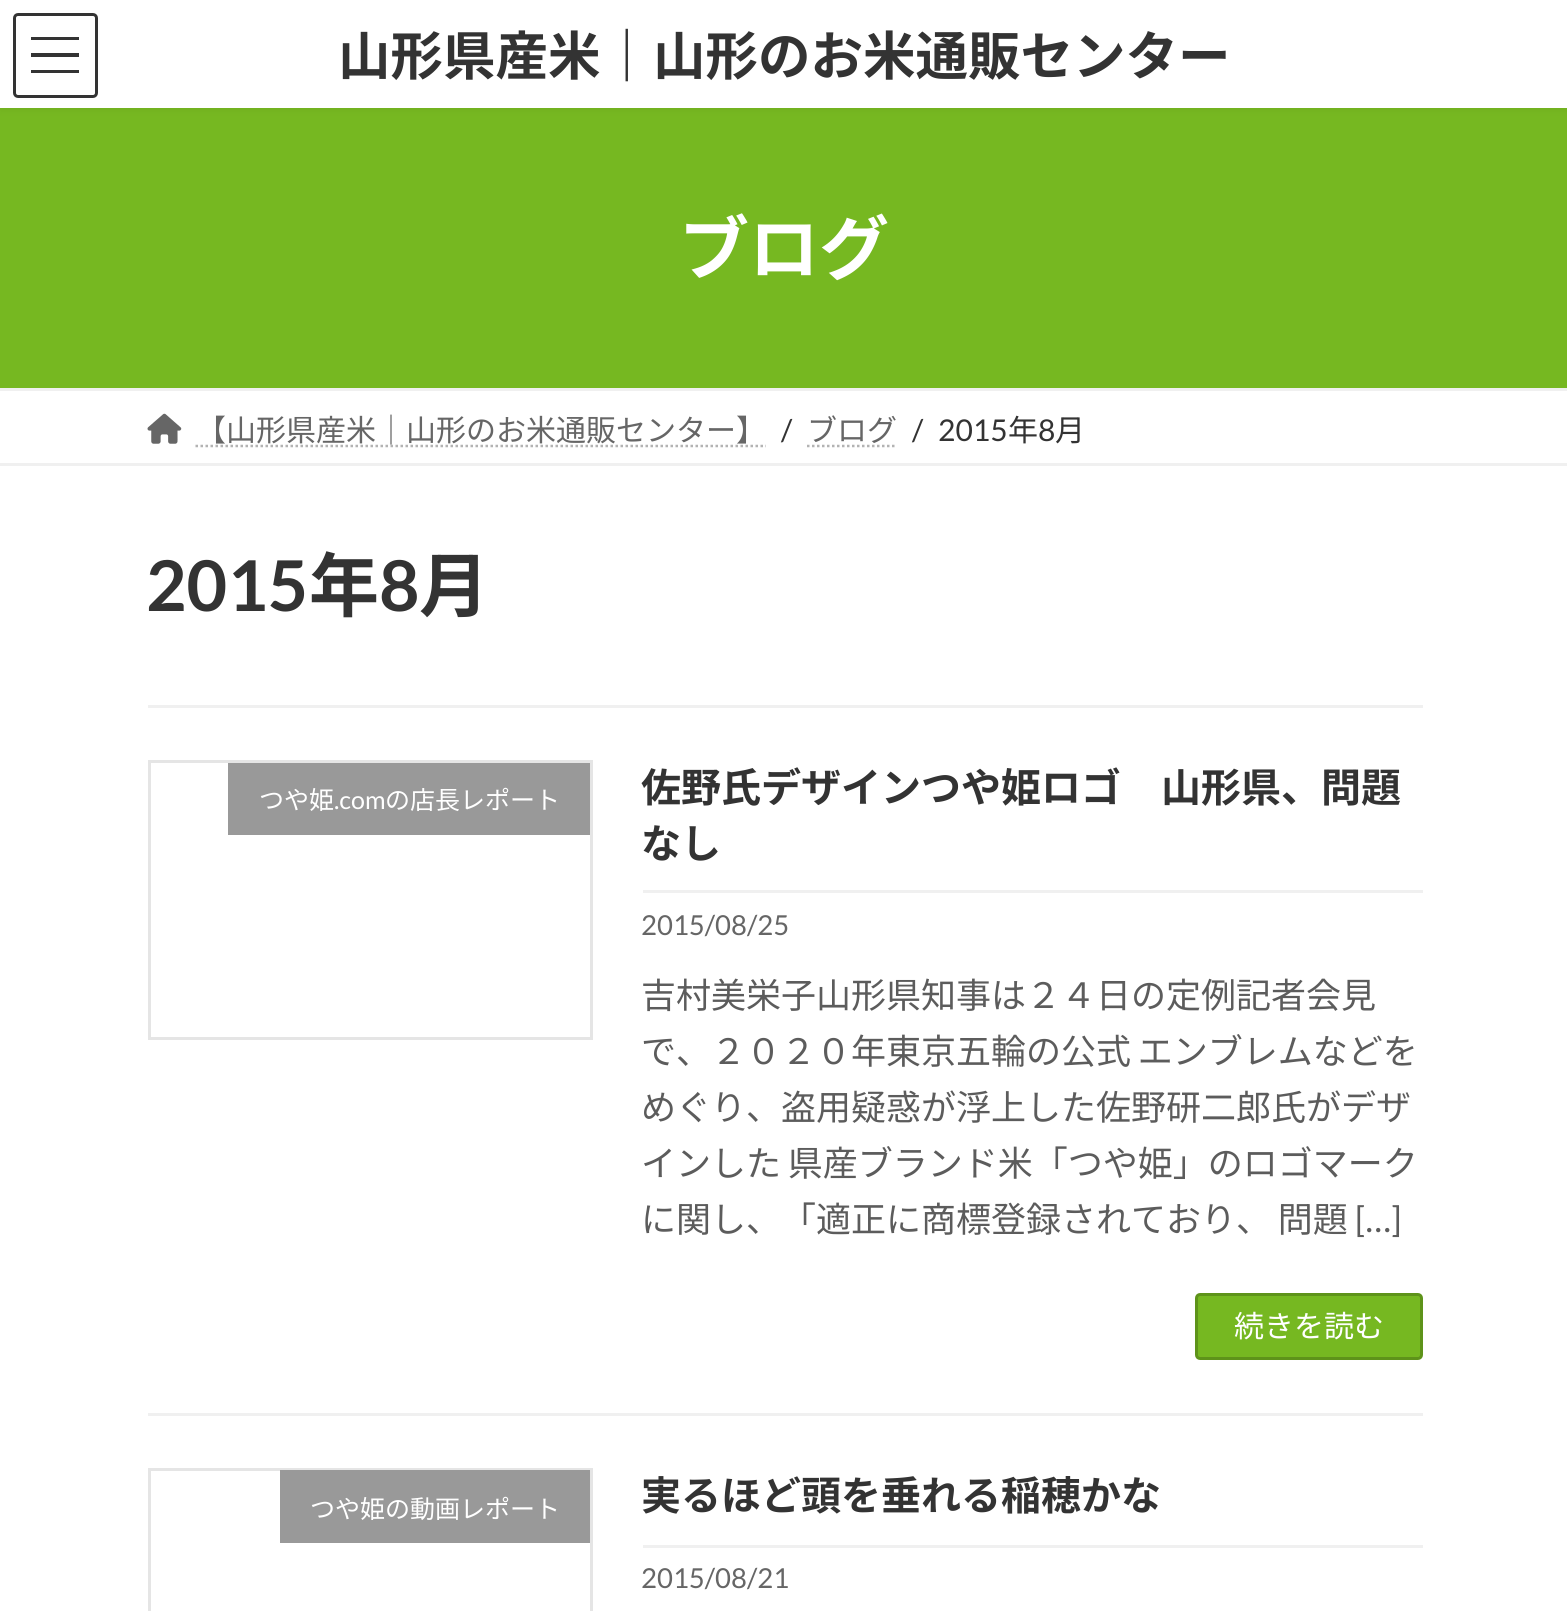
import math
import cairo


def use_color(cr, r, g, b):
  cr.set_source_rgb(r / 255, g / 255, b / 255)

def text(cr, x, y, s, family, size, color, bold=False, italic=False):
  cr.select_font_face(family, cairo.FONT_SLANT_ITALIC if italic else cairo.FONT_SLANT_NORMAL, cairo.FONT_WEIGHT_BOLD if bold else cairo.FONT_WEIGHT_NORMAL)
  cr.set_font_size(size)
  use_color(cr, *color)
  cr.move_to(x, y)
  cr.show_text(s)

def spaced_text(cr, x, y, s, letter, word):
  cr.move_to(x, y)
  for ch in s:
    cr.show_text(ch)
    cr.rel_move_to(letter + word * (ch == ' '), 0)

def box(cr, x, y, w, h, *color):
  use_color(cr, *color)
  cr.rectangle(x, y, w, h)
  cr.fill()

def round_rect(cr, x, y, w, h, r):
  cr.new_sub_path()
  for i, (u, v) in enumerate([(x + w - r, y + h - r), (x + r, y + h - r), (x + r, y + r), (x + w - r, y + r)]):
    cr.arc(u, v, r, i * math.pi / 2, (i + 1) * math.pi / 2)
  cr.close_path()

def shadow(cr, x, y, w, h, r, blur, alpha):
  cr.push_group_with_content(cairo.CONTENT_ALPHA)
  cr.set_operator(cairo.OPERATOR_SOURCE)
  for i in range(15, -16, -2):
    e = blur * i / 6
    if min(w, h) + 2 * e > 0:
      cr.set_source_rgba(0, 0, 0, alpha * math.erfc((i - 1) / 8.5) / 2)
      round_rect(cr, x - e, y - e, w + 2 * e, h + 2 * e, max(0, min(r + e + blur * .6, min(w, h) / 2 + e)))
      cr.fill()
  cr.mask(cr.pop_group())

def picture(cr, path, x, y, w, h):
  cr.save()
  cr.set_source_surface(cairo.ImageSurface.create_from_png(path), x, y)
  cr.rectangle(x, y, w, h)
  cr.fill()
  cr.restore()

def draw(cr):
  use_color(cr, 255, 255, 255)
  cr.paint()
  box(cr, 0, 108, 1567, 280, 118, 184, 33)
  use_color(cr, 0, 0, 0)
  shadow(cr, 0, 3, 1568, 107, 0, 4, 0.05)
  box(cr, 0, 0, 1567, 108, 255, 255, 255)
  box(cr, 31, 37, 48, 3, 51, 51, 51)
  box(cr, 31, 53, 48, 4, 51, 51, 51)
  box(cr, 31, 70, 48, 3, 51, 51, 51)
  round_rect(cr, 14.5, 14.5, 82, 82, 3.5)
  cr.set_line_width(3)
  cr.stroke()
  box(cr, 0, 388, 1567, 3, 240, 240, 240)
  box(cr, 0, 463, 1567, 3, 240, 240, 240)
  picture(cr, "img_01.png", 147, 413, 35, 31)
  cr.new_path()
  cr.move_to(195.5, 446)
  cr.line_to(766, 446)
  use_color(cr, 179, 179, 179)
  cr.set_line_width(2.5)
  cr.set_dash([2.5, 2.5])
  cr.stroke()
  cr.new_path()
  cr.move_to(807, 446)
  cr.line_to(897, 446)
  cr.stroke()
  box(cr, 148, 705, 1275, 3, 240, 240, 240)
  box(cr, 148, 1413, 1275, 3, 240, 240, 240)
  cr.rectangle(149.5, 761.5, 442, 277)
  use_color(cr, 229, 229, 229)
  cr.set_line_width(3)
  cr.set_dash([])
  cr.stroke()
  box(cr, 228, 763, 362, 72, 153, 153, 153)
  box(cr, 643, 890, 780, 3, 240, 240, 240)
  use_color(cr, 118, 184, 33)
  round_rect(cr, 1196.5, 1294.5, 225, 64, 3.5)
  cr.fill_preserve()
  use_color(cr, 94, 147, 26)
  cr.stroke()
  cr.rectangle(149.5, 1469.5, 442, 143)
  use_color(cr, 229, 229, 229)
  cr.stroke()
  box(cr, 280, 1470, 310, 73, 153, 153, 153)
  box(cr, 643, 1545, 780, 3, 240, 240, 240)
  text(cr, 338, 75, "山形県産米｜山形のお米通販センター", "Noto Sans JP", 52.5, (51, 51, 51), bold=True)
  text(cr, 679, 274, "ブログ", "Noto Sans JP", 70, (255, 255, 255), bold=True)
  text(cr, 196, 441, "【山形県産米｜山形のお米通販センター】", "Noto Sans JP", 30, (102, 102, 102))
  text(cr, 781, 441, "/", "Lato", 30, (51, 51, 51))
  text(cr, 807, 441, "ブログ", "Noto Sans JP", 30, (102, 102, 102))
  text(cr, 912, 441, "/", "Lato", 30, (51, 51, 51))
  text(cr, 938, 441, "2015", "Lato", 30, (51, 51, 51))
  text(cr, 1008, 441, "年", "Noto Sans JP", 30, (51, 51, 51))
  text(cr, 1038, 441, "8", "Lato", 30, (51, 51, 51))
  text(cr, 1055, 441, "月", "Noto Sans JP", 30, (51, 51, 51))
  text(cr, 146, 611, "2015", "Lato", 70, (51, 51, 51), bold=True)
  text(cr, 309, 611, "年", "Noto Sans JP", 70, (51, 51, 51), bold=True)
  text(cr, 379, 611, "8", "Lato", 70, (51, 51, 51), bold=True)
  text(cr, 419, 611, "月", "Noto Sans JP", 70, (51, 51, 51), bold=True)
  text(cr, 259, 809, "つや姫", "Noto Sans JP", 25, (255, 255, 255))
  text(cr, 334, 809, ".com", "Lato", 25, (255, 255, 255))
  text(cr, 385, 809, "の店長レポート", "Noto Sans JP", 25, (255, 255, 255))
  text(cr, 641, 802, "佐野氏デザインつや姫ロゴ　山形県、問題", "Noto Sans JP", 40, (51, 51, 51), bold=True)
  text(cr, 641, 858, "なし", "Noto Sans JP", 40, (51, 51, 51), bold=True)
  text(cr, 641, 935, "2015/08/25", "Lato", 27.5, (102, 102, 102))
  text(cr, 641, 1008, "吉村美栄子山形県知事は２４日の定例記者会見", "Noto Sans JP", 35, (92, 92, 92))
  spaced_text(cr, 641, 1064, "で、２０２０年東京五輪の公式 エンブレムなどを", 0, -1)
  text(cr, 641, 1120, "めぐり、盗用疑惑が浮上した佐野研二郎氏がデザ", "Noto Sans JP", 35, (92, 92, 92))
  spaced_text(cr, 641, 1176, "インした 県産ブランド米「つや姫」のロゴマーク", 0, -1)
  spaced_text(cr, 641, 1232, "に関し、「適正に商標登録されており、 問題", 0, -1)
  text(cr, 1355, 1232, "[…]", "Lato", 35, (92, 92, 92))
  text(cr, 1234, 1337, "続きを読む", "Noto Sans JP", 30, (255, 255, 255))
  text(cr, 310, 1518, "つや姫の動画レポート", "Noto Sans JP", 25, (255, 255, 255))
  text(cr, 641, 1510, "実るほど頭を垂れる稲穂かな", "Noto Sans JP", 40, (51, 51, 51), bold=True)
  text(cr, 641, 1588, "2015/08/21", "Lato", 27.5, (102, 102, 102))


surface = cairo.ImageSurface(cairo.FORMAT_RGB24, 1567, 1611)
cr = cairo.Context(surface)
options = cairo.FontOptions()
options.set_hint_metrics(cairo.HINT_METRICS_OFF)
options.set_hint_style(cairo.HINT_STYLE_NONE)
cr.set_font_options(options)
cr.set_miter_limit(4)
draw(cr)
surface.write_to_png("out.png")
